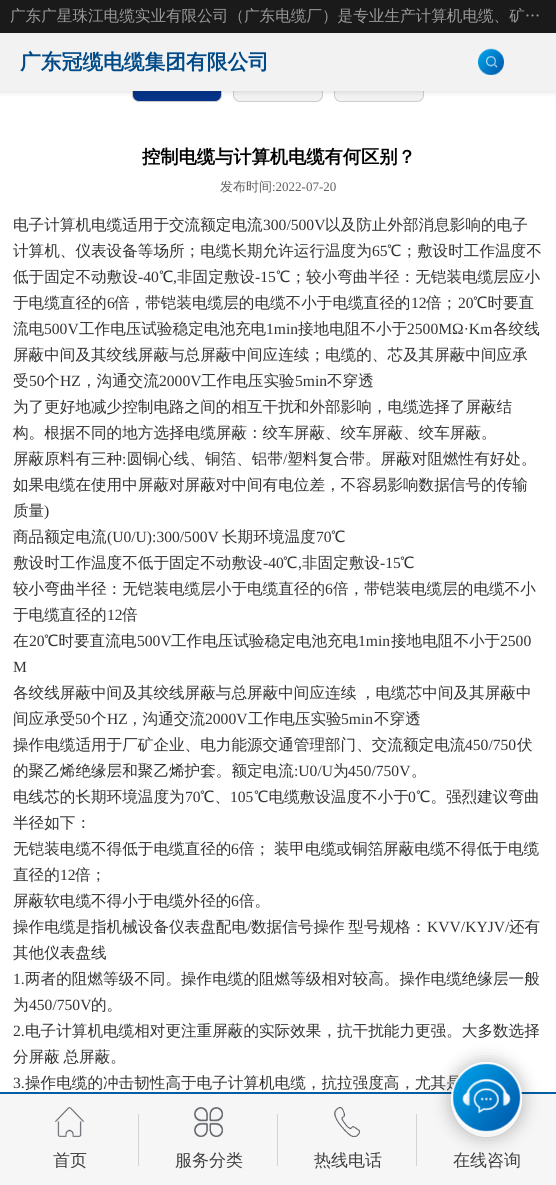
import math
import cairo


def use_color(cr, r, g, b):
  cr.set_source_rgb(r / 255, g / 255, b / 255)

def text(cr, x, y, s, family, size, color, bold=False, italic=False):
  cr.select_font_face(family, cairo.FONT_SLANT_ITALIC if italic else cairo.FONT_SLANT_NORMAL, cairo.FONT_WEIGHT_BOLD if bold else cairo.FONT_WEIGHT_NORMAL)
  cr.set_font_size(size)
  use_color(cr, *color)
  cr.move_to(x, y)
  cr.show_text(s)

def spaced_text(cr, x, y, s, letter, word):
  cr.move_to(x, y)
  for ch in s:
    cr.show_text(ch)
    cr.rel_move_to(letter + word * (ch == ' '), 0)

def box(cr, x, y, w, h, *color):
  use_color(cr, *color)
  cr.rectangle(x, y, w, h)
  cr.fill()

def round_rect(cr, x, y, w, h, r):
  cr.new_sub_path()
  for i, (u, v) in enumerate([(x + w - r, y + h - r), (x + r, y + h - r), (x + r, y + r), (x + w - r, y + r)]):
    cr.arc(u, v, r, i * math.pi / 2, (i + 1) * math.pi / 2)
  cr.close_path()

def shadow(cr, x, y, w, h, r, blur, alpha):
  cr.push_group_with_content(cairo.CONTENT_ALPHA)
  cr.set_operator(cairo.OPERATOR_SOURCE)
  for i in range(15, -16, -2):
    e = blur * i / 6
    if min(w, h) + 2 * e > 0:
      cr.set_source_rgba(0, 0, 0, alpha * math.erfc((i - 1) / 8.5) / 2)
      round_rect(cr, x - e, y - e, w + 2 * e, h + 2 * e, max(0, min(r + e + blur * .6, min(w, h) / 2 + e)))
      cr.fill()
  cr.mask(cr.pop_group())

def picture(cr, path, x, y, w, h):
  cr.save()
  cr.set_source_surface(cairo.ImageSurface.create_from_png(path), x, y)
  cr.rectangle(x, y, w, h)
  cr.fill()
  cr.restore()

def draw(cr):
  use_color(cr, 255, 255, 255)
  cr.paint()
  box(cr, 0, 0, 556, 33, 26, 26, 26)
  use_color(cr, 6, 51, 135)
  round_rect(cr, 132.5, 67.5, 89, 34, 6.5)
  cr.fill_preserve()
  use_color(cr, 204, 204, 204)
  cr.set_line_width(1)
  cr.stroke()
  use_color(cr, 242, 242, 242)
  round_rect(cr, 233.5, 67.5, 89, 34, 6.5)
  cr.fill_preserve()
  use_color(cr, 204, 204, 204)
  cr.stroke()
  use_color(cr, 242, 242, 242)
  round_rect(cr, 334.5, 67.5, 89, 34, 6.5)
  cr.fill_preserve()
  use_color(cr, 204, 204, 204)
  cr.stroke()
  use_color(cr, 0, 0, 0)
  shadow(cr, 0, 35, 556, 58, 0, 2.5, 0.1)
  box(cr, 0, 33, 556, 58, 242, 242, 242)
  picture(cr, "img_01.png", 478, 48, 26, 27)
  box(cr, 0, 1094, 556, 91, 246, 246, 246)
  box(cr, 0, 1092, 556, 2, 0, 94, 162)
  picture(cr, "img_02.png", 55, 1107, 29, 30)
  box(cr, 138, 1114, 1, 52, 211, 211, 211)
  picture(cr, "img_03.png", 194, 1107, 29, 30)
  box(cr, 277, 1114, 1, 52, 211, 211, 211)
  picture(cr, "img_04.png", 334, 1107, 26, 30)
  box(cr, 416, 1114, 1, 52, 211, 211, 211)
  cr.save()
  cr.set_fill_rule(cairo.FILL_RULE_EVEN_ODD)
  cr.new_path()
  cr.move_to(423, 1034)
  cr.line_to(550, 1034)
  cr.line_to(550, 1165)
  cr.line_to(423, 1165)
  cr.close_path()
  cr.move_to(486.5, 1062)
  cr.curve_to(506, 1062, 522, 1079, 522, 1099.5)
  cr.curve_to(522, 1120, 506, 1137, 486.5, 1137)
  cr.curve_to(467, 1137, 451, 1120, 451, 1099.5)
  cr.curve_to(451, 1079, 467, 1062, 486.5, 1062)
  cr.close_path()
  cr.clip()
  use_color(cr, 0, 0, 0)
  shadow(cr, 451, 1062, 71, 75, 35.5, 9, 0.28)
  cr.restore()
  text(cr, 10, 21, "广东广星珠江电缆实业有限公司（广东电缆厂）是专业生产计算机电缆、矿…", "WenQuanYi Zen Hei Medium", 15.6, (153, 153, 153))
  text(cr, 20, 69, "广东冠缆电缆集团有限公司", "WenQuanYi Zen Hei", 20.75, (1, 74, 136), bold=True)
  text(cr, 142, 163, "控制电缆与计算机电缆有何区别？", "WenQuanYi Zen Hei", 18.25, (0, 0, 0), bold=True)
  text(cr, 220, 191, "发布时间", "WenQuanYi Zen Hei Medium", 13, (95, 95, 95))
  text(cr, 272, 191, ":2022-07-20", "Liberation Serif", 13, (95, 95, 95))
  text(cr, 13, 230, "电子计算机电缆适用于交流额定电流", "WenQuanYi Zen Hei Medium", 15.6, (51, 51, 51))
  text(cr, 263, 230, "300/500V", "Liberation Serif", 15.6, (51, 51, 51))
  text(cr, 325, 230, "以及防止外部消息影响的电子", "WenQuanYi Zen Hei Medium", 15.6, (51, 51, 51))
  text(cr, 13, 256, "计算机、仪表设备等场所；电缆长期允许运行温度为", "WenQuanYi Zen Hei Medium", 15.6, (51, 51, 51))
  text(cr, 372, 256, "65", "Liberation Serif", 15.6, (51, 51, 51))
  text(cr, 387, 256, "℃；敷设时工作温度不", "WenQuanYi Zen Hei Medium", 15.6, (51, 51, 51))
  text(cr, 13, 282, "低于固定不动敷设", "WenQuanYi Zen Hei Medium", 15.6, (51, 51, 51))
  text(cr, 138, 282, "-40", "Liberation Serif", 15.6, (51, 51, 51))
  text(cr, 159, 282, "℃", "WenQuanYi Zen Hei Medium", 15.6, (51, 51, 51))
  text(cr, 173, 282, ",", "Liberation Serif", 15.6, (51, 51, 51))
  text(cr, 177, 282, "非固定敷设", "WenQuanYi Zen Hei Medium", 15.6, (51, 51, 51))
  text(cr, 255, 282, "-15", "Liberation Serif", 15.6, (51, 51, 51))
  text(cr, 276, 282, "℃；较小弯曲半径：无铠装电缆层应小", "WenQuanYi Zen Hei Medium", 15.6, (51, 51, 51))
  text(cr, 13, 308, "于电缆直径的", "WenQuanYi Zen Hei Medium", 15.6, (51, 51, 51))
  text(cr, 107, 308, "6", "Liberation Serif", 15.6, (51, 51, 51))
  text(cr, 114, 308, "倍，带铠装电缆层的电缆不小于电缆直径的", "WenQuanYi Zen Hei Medium", 15.6, (51, 51, 51))
  text(cr, 411, 308, "12", "Liberation Serif", 15.6, (51, 51, 51))
  text(cr, 426, 308, "倍；", "WenQuanYi Zen Hei Medium", 15.6, (51, 51, 51))
  text(cr, 458, 308, "20", "Liberation Serif", 15.6, (51, 51, 51))
  text(cr, 473, 308, "℃时要直", "WenQuanYi Zen Hei Medium", 15.6, (51, 51, 51))
  text(cr, 13, 334, "流电", "WenQuanYi Zen Hei Medium", 15.6, (51, 51, 51))
  text(cr, 44, 334, "500V", "Liberation Serif", 15.6, (51, 51, 51))
  text(cr, 79, 334, "工作电压试验稳定电池充电", "WenQuanYi Zen Hei Medium", 15.6, (51, 51, 51))
  text(cr, 266, 334, "1min", "Liberation Serif", 15.6, (51, 51, 51))
  text(cr, 298, 334, "接地电阻不小于", "WenQuanYi Zen Hei Medium", 15.6, (51, 51, 51))
  text(cr, 407, 334, "2500MΩ·Km", "Liberation Serif", 15.6, (51, 51, 51))
  text(cr, 493, 334, "各绞线", "WenQuanYi Zen Hei Medium", 15.6, (51, 51, 51))
  text(cr, 13, 360, "屏蔽中间及其绞线屏蔽与总屏蔽中间应连续；电缆的、芯及其屏蔽中间应承", "WenQuanYi Zen Hei Medium", 15.6, (51, 51, 51))
  text(cr, 13, 386, "受", "WenQuanYi Zen Hei Medium", 15.6, (51, 51, 51))
  text(cr, 29, 386, "50", "Liberation Serif", 15.6, (51, 51, 51))
  text(cr, 44, 386, "个", "WenQuanYi Zen Hei Medium", 15.6, (51, 51, 51))
  text(cr, 60, 386, "HZ", "Liberation Serif", 15.6, (51, 51, 51))
  text(cr, 81, 386, "，沟通交流", "WenQuanYi Zen Hei Medium", 15.6, (51, 51, 51))
  text(cr, 159, 386, "2000V", "Liberation Serif", 15.6, (51, 51, 51))
  text(cr, 201, 386, "工作电压实验", "WenQuanYi Zen Hei Medium", 15.6, (51, 51, 51))
  text(cr, 295, 386, "5min", "Liberation Serif", 15.6, (51, 51, 51))
  text(cr, 327, 386, "不穿透", "WenQuanYi Zen Hei Medium", 15.6, (51, 51, 51))
  text(cr, 13, 412, "为了更好地减少控制电路之间的相互干扰和外部影响，电缆选择了屏蔽结", "WenQuanYi Zen Hei Medium", 15.6, (51, 51, 51))
  text(cr, 13, 438, "构。根据不同的地方选择电缆屏蔽：绞车屏蔽、绞车屏蔽、绞车屏蔽。", "WenQuanYi Zen Hei Medium", 15.6, (51, 51, 51))
  text(cr, 13, 464, "屏蔽原料有三种", "WenQuanYi Zen Hei Medium", 15.6, (51, 51, 51))
  text(cr, 122, 464, ":", "Liberation Serif", 15.6, (51, 51, 51))
  text(cr, 127, 464, "圆铜心线、铜箔、铝带", "WenQuanYi Zen Hei Medium", 15.6, (51, 51, 51))
  text(cr, 283, 464, "/", "Liberation Serif", 15.6, (51, 51, 51))
  text(cr, 287, 464, "塑料复合带。屏蔽对阻燃性有好处。", "WenQuanYi Zen Hei Medium", 15.6, (51, 51, 51))
  text(cr, 13, 490, "如果电缆在使用中屏蔽对屏蔽对中间有电位差，不容易影响数据信号的传输", "WenQuanYi Zen Hei Medium", 15.6, (51, 51, 51))
  text(cr, 13, 516, "质量", "WenQuanYi Zen Hei Medium", 15.6, (51, 51, 51))
  text(cr, 44, 516, ")", "Liberation Serif", 15.6, (51, 51, 51))
  text(cr, 13, 542, "商品额定电流", "WenQuanYi Zen Hei Medium", 15.6, (51, 51, 51))
  text(cr, 107, 542, "(U0/U):300/500V", "Liberation Serif", 15.6, (51, 51, 51))
  text(cr, 222, 542, "长期环境温度", "WenQuanYi Zen Hei Medium", 15.6, (51, 51, 51))
  text(cr, 316, 542, "70", "Liberation Serif", 15.6, (51, 51, 51))
  text(cr, 331, 542, "℃", "WenQuanYi Zen Hei Medium", 15.6, (51, 51, 51))
  text(cr, 13, 568, "敷设时工作温度不低于固定不动敷设", "WenQuanYi Zen Hei Medium", 15.6, (51, 51, 51))
  text(cr, 263, 568, "-40", "Liberation Serif", 15.6, (51, 51, 51))
  text(cr, 283, 568, "℃", "WenQuanYi Zen Hei Medium", 15.6, (51, 51, 51))
  text(cr, 298, 568, ",", "Liberation Serif", 15.6, (51, 51, 51))
  text(cr, 302, 568, "非固定敷设", "WenQuanYi Zen Hei Medium", 15.6, (51, 51, 51))
  text(cr, 380, 568, "-15", "Liberation Serif", 15.6, (51, 51, 51))
  text(cr, 400, 568, "℃", "WenQuanYi Zen Hei Medium", 15.6, (51, 51, 51))
  text(cr, 13, 594, "较小弯曲半径：无铠装电缆层小于电缆直径的", "WenQuanYi Zen Hei Medium", 15.6, (51, 51, 51))
  text(cr, 325, 594, "6", "Liberation Serif", 15.6, (51, 51, 51))
  text(cr, 333, 594, "倍，带铠装电缆层的电缆不小", "WenQuanYi Zen Hei Medium", 15.6, (51, 51, 51))
  text(cr, 13, 620, "于电缆直径的", "WenQuanYi Zen Hei Medium", 15.6, (51, 51, 51))
  text(cr, 107, 620, "12", "Liberation Serif", 15.6, (51, 51, 51))
  text(cr, 122, 620, "倍", "WenQuanYi Zen Hei Medium", 15.6, (51, 51, 51))
  text(cr, 13, 646, "在", "WenQuanYi Zen Hei Medium", 15.6, (51, 51, 51))
  text(cr, 29, 646, "20", "Liberation Serif", 15.6, (51, 51, 51))
  text(cr, 44, 646, "℃时要直流电", "WenQuanYi Zen Hei Medium", 15.6, (51, 51, 51))
  text(cr, 137, 646, "500V", "Liberation Serif", 15.6, (51, 51, 51))
  text(cr, 171, 646, "工作电压试验稳定电池充电", "WenQuanYi Zen Hei Medium", 15.6, (51, 51, 51))
  text(cr, 358, 646, "1min", "Liberation Serif", 15.6, (51, 51, 51))
  text(cr, 391, 646, "接地电阻不小于", "WenQuanYi Zen Hei Medium", 15.6, (51, 51, 51))
  text(cr, 500, 646, "2500", "Liberation Serif", 15.6, (51, 51, 51))
  text(cr, 13, 672, "M", "Liberation Serif", 15.6, (51, 51, 51))
  cr.select_font_face("WenQuanYi Zen Hei Medium")
  spaced_text(cr, 13, 698, "各绞线屏蔽中间及其绞线屏蔽与总屏蔽中间应连续 ，电缆芯中间及其屏蔽中", 0, -1)
  text(cr, 13, 724, "间应承受", "WenQuanYi Zen Hei Medium", 15.6, (51, 51, 51))
  text(cr, 75, 724, "50", "Liberation Serif", 15.6, (51, 51, 51))
  text(cr, 91, 724, "个", "WenQuanYi Zen Hei Medium", 15.6, (51, 51, 51))
  text(cr, 107, 724, "HZ", "Liberation Serif", 15.6, (51, 51, 51))
  text(cr, 127, 724, "，沟通交流", "WenQuanYi Zen Hei Medium", 15.6, (51, 51, 51))
  text(cr, 205, 724, "2000V", "Liberation Serif", 15.6, (51, 51, 51))
  text(cr, 248, 724, "工作电压实验", "WenQuanYi Zen Hei Medium", 15.6, (51, 51, 51))
  text(cr, 341, 724, "5min", "Liberation Serif", 15.6, (51, 51, 51))
  text(cr, 374, 724, "不穿透", "WenQuanYi Zen Hei Medium", 15.6, (51, 51, 51))
  text(cr, 13, 750, "操作电缆适用于厂矿企业、电力能源交通管理部门、交流额定电流", "WenQuanYi Zen Hei Medium", 15.6, (51, 51, 51))
  text(cr, 465, 750, "450/750", "Liberation Serif", 15.6, (51, 51, 51))
  text(cr, 517, 750, "伏", "WenQuanYi Zen Hei Medium", 15.6, (51, 51, 51))
  text(cr, 13, 776, "的聚乙烯绝缘层和聚乙烯护套。额定电流", "WenQuanYi Zen Hei Medium", 15.6, (51, 51, 51))
  text(cr, 294, 776, ":U0/U", "Liberation Serif", 15.6, (51, 51, 51))
  text(cr, 333, 776, "为", "WenQuanYi Zen Hei Medium", 15.6, (51, 51, 51))
  text(cr, 348, 776, "450/750V", "Liberation Serif", 15.6, (51, 51, 51))
  text(cr, 411, 776, "。", "WenQuanYi Zen Hei Medium", 15.6, (51, 51, 51))
  text(cr, 13, 802, "电线芯的长期环境温度为", "WenQuanYi Zen Hei Medium", 15.6, (51, 51, 51))
  text(cr, 185, 802, "70", "Liberation Serif", 15.6, (51, 51, 51))
  text(cr, 200, 802, "℃、", "WenQuanYi Zen Hei Medium", 15.6, (51, 51, 51))
  text(cr, 230, 802, "105", "Liberation Serif", 15.6, (51, 51, 51))
  text(cr, 254, 802, "℃电缆敷设温度不小于", "WenQuanYi Zen Hei Medium", 15.6, (51, 51, 51))
  text(cr, 408, 802, "0", "Liberation Serif", 15.6, (51, 51, 51))
  text(cr, 416, 802, "℃。强烈建议弯曲", "WenQuanYi Zen Hei Medium", 15.6, (51, 51, 51))
  text(cr, 13, 828, "半径如下：", "WenQuanYi Zen Hei Medium", 15.6, (51, 51, 51))
  text(cr, 13, 854, "无铠装电缆不得低于电缆直径的", "WenQuanYi Zen Hei Medium", 15.6, (51, 51, 51))
  text(cr, 231, 854, "6", "Liberation Serif", 15.6, (51, 51, 51))
  cr.select_font_face("WenQuanYi Zen Hei Medium")
  spaced_text(cr, 239, 854, "倍； 装甲电缆或铜箔屏蔽电缆不得低于电缆", 0, -1)
  text(cr, 13, 880, "直径的", "WenQuanYi Zen Hei Medium", 15.6, (51, 51, 51))
  text(cr, 60, 880, "12", "Liberation Serif", 15.6, (51, 51, 51))
  text(cr, 75, 880, "倍；", "WenQuanYi Zen Hei Medium", 15.6, (51, 51, 51))
  text(cr, 13, 906, "屏蔽软电缆不得小于电缆外径的", "WenQuanYi Zen Hei Medium", 15.6, (51, 51, 51))
  text(cr, 231, 906, "6", "Liberation Serif", 15.6, (51, 51, 51))
  text(cr, 239, 906, "倍。", "WenQuanYi Zen Hei Medium", 15.6, (51, 51, 51))
  text(cr, 13, 932, "操作电缆是指机械设备仪表盘配电", "WenQuanYi Zen Hei Medium", 15.6, (51, 51, 51))
  text(cr, 247, 932, "/", "Liberation Serif", 15.6, (51, 51, 51))
  cr.select_font_face("WenQuanYi Zen Hei Medium")
  spaced_text(cr, 251, 932, "数据信号操作 型号规格：", 0, -1)
  text(cr, 427, 932, "KVV/KYJV/", "Liberation Serif", 15.6, (51, 51, 51))
  text(cr, 509, 932, "还有", "WenQuanYi Zen Hei Medium", 15.6, (51, 51, 51))
  text(cr, 13, 958, "其他仪表盘线", "WenQuanYi Zen Hei Medium", 15.6, (51, 51, 51))
  text(cr, 13, 984, "1.", "Liberation Serif", 15.6, (51, 51, 51))
  text(cr, 25, 984, "两者的阻燃等级不同。操作电缆的阻燃等级相对较高。操作电缆绝缘层一般", "WenQuanYi Zen Hei Medium", 15.6, (51, 51, 51))
  text(cr, 13, 1010, "为", "WenQuanYi Zen Hei Medium", 15.6, (51, 51, 51))
  text(cr, 29, 1010, "450/750V", "Liberation Serif", 15.6, (51, 51, 51))
  text(cr, 91, 1010, "的。", "WenQuanYi Zen Hei Medium", 15.6, (51, 51, 51))
  text(cr, 13, 1036, "2.", "Liberation Serif", 15.6, (51, 51, 51))
  text(cr, 25, 1036, "电子计算机电缆相对更注重屏蔽的实际效果，抗干扰能力更强。大多数选择", "WenQuanYi Zen Hei Medium", 15.6, (51, 51, 51))
  spaced_text(cr, 13, 1062, "分屏蔽 总屏蔽。", 0, -1)
  text(cr, 13, 1088, "3.", "Liberation Serif", 15.6, (51, 51, 51))
  text(cr, 25, 1088, "操作电缆的冲击韧性高于电子计算机电缆，抗拉强度高，尤其是", "WenQuanYi Zen Hei Medium", 15.6, (51, 51, 51))
  text(cr, 53, 1166, "首页", "WenQuanYi Zen Hei Medium", 17, (63, 63, 63))
  text(cr, 175, 1166, "服务分类", "WenQuanYi Zen Hei Medium", 17, (63, 63, 63))
  text(cr, 314, 1166, "热线电话", "WenQuanYi Zen Hei Medium", 17, (63, 63, 63))
  picture(cr, "img_05.png", 450, 1062, 73, 71)
  text(cr, 453, 1166, "在线咨询", "WenQuanYi Zen Hei Medium", 17, (63, 63, 63))


surface = cairo.ImageSurface(cairo.FORMAT_RGB24, 556, 1185)
cr = cairo.Context(surface)
options = cairo.FontOptions()
options.set_hint_metrics(cairo.HINT_METRICS_OFF)
options.set_hint_style(cairo.HINT_STYLE_NONE)
cr.set_font_options(options)
cr.set_miter_limit(4)
draw(cr)
surface.write_to_png("out.png")
